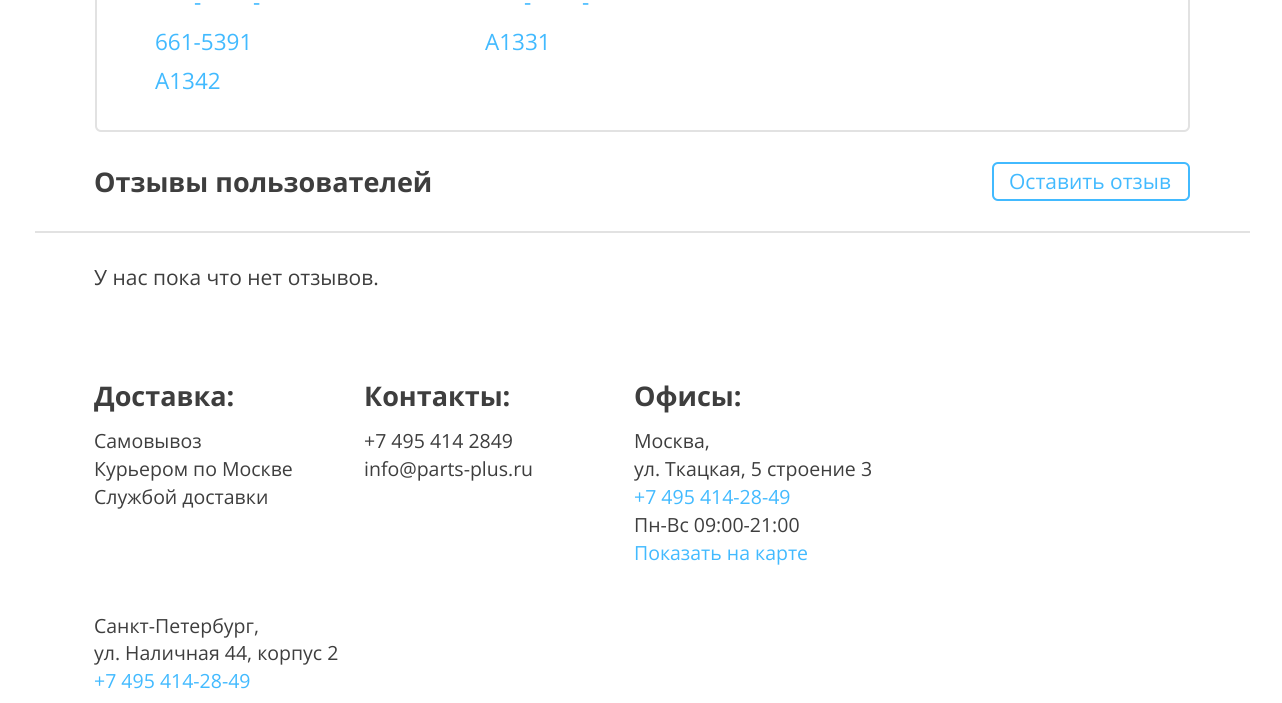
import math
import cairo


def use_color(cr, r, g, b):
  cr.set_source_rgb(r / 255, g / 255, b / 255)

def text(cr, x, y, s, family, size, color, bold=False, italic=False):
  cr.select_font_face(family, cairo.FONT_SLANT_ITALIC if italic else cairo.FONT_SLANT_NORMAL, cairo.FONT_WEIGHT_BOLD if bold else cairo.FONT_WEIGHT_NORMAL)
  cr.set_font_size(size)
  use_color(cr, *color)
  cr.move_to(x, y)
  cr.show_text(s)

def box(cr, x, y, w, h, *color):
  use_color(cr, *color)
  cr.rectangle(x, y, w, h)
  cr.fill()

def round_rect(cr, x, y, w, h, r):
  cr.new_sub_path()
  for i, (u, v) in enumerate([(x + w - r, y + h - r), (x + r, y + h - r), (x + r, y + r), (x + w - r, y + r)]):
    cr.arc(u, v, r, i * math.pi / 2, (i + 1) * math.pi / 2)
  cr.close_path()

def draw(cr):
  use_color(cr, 255, 255, 255)
  cr.paint()
  round_rect(cr, 96, -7, 1093, 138, 5)
  use_color(cr, 226, 226, 226)
  cr.stroke()
  box(cr, 35, 231, 1215, 2, 226, 226, 226)
  round_rect(cr, 993, 163, 196, 37, 5)
  use_color(cr, 66, 186, 255)
  cr.stroke()
  text(cr, 194, 10, "-", "Open Sans", 22.5, (66, 186, 255))
  text(cr, 253, 10, "-", "Open Sans", 22.5, (66, 186, 255))
  text(cr, 524, 10, "-", "Open Sans", 22.5, (66, 186, 255))
  text(cr, 582, 10, "-", "Open Sans", 22.5, (66, 186, 255))
  text(cr, 155, 50, "661-5391", "Open Sans", 22.5, (66, 186, 255))
  text(cr, 485, 50, "A1331", "Open Sans", 22.5, (66, 186, 255))
  text(cr, 155, 89, "A1342", "Open Sans", 22.5, (66, 186, 255))
  text(cr, 94, 192, "Отзывы пользователей", "Open Sans", 27, (62, 62, 62), bold=True)
  text(cr, 1009, 189, "Оставить отзыв", "Open Sans", 21, (66, 186, 255))
  text(cr, 94, 285, "У нас пока что нет отзывов.", "Open Sans", 21, (62, 62, 62))
  text(cr, 94, 406, "Доставка:", "Open Sans", 27, (62, 62, 62), bold=True)
  text(cr, 94, 448, "Самовывоз", "Open Sans", 19.5, (62, 62, 62))
  text(cr, 94, 476, "Курьером по Москве", "Open Sans", 19.5, (62, 62, 62))
  text(cr, 94, 504, "Службой доставки", "Open Sans", 19.5, (62, 62, 62))
  text(cr, 364, 406, "Контакты:", "Open Sans", 27, (62, 62, 62), bold=True)
  text(cr, 364, 448, "+7 495 414 2849", "Open Sans", 19.5, (62, 62, 62))
  text(cr, 364, 476, "info@parts-plus.ru", "Open Sans", 19.5, (62, 62, 62))
  text(cr, 634, 406, "Офисы:", "Open Sans", 27, (62, 62, 62), bold=True)
  text(cr, 634, 448, "Москва,", "Open Sans", 19.5, (62, 62, 62))
  text(cr, 634, 476, "ул. Ткацкая, 5 строение 3", "Open Sans", 19.5, (62, 62, 62))
  text(cr, 634, 504, "+7 495 414-28-49", "Open Sans", 19.5, (66, 186, 255))
  text(cr, 634, 532, "Пн-Вс 09:00-21:00", "Open Sans", 19.5, (62, 62, 62))
  text(cr, 634, 560, "Показать на карте", "Open Sans", 19.5, (66, 186, 255))
  text(cr, 94, 633, "Санкт-Петербург,", "Open Sans", 19.5, (62, 62, 62))
  text(cr, 94, 660, "ул. Наличная 44, корпус 2", "Open Sans", 19.5, (62, 62, 62))
  text(cr, 94, 688, "+7 495 414-28-49", "Open Sans", 19.5, (66, 186, 255))


surface = cairo.ImageSurface(cairo.FORMAT_RGB24, 1282, 703)
cr = cairo.Context(surface)
options = cairo.FontOptions()
options.set_hint_metrics(cairo.HINT_METRICS_OFF)
options.set_hint_style(cairo.HINT_STYLE_NONE)
cr.set_font_options(options)
cr.set_miter_limit(4)
draw(cr)
surface.write_to_png("out.png")
